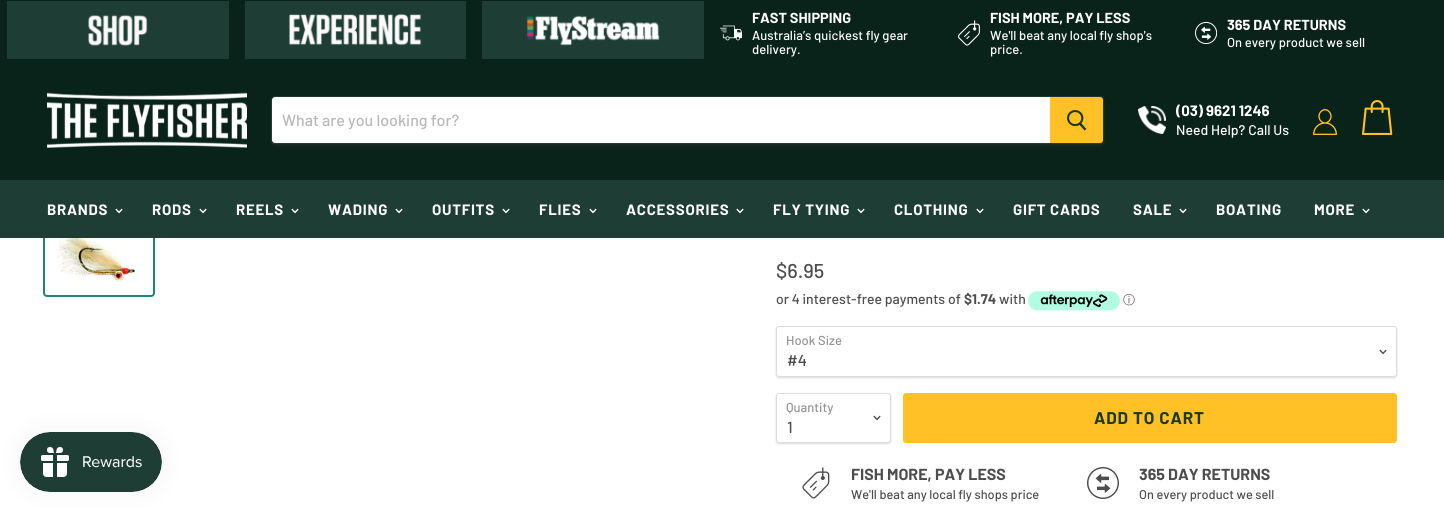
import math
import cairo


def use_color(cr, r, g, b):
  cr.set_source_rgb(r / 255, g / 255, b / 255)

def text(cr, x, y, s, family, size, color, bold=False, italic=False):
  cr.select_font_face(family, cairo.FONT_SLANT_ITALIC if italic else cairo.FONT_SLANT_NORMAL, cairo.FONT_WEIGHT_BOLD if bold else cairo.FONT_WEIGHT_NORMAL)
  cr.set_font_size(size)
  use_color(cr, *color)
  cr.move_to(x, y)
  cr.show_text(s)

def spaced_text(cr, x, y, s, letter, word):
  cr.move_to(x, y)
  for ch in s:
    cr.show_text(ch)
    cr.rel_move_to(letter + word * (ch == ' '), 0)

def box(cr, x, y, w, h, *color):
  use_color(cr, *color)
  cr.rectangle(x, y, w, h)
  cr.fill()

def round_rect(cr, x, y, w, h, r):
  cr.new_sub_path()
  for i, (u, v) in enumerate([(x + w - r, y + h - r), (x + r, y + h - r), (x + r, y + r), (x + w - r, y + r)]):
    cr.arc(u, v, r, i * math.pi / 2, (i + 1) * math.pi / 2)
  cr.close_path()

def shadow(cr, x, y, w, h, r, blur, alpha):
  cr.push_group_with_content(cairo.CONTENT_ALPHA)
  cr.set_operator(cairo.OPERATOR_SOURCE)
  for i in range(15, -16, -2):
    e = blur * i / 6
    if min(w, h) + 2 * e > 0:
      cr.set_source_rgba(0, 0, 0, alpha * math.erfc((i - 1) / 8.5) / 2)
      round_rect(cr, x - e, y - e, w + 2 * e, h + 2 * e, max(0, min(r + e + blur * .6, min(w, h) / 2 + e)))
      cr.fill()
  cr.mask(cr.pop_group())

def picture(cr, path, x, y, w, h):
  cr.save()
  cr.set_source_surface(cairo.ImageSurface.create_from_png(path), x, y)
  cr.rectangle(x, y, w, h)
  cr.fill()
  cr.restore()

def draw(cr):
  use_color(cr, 255, 255, 255)
  cr.paint()
  box(cr, 0, 0, 1444, 180, 9, 34, 26)
  box(cr, 7, 1, 222, 58, 30, 61, 52)
  picture(cr, "img_01.png", 88, 15, 60, 31)
  box(cr, 245, 1, 221, 58, 30, 61, 52)
  picture(cr, "img_02.png", 288, 14, 134, 32)
  box(cr, 482, 1, 222, 58, 30, 61, 52)
  picture(cr, "img_03.png", 526, 15, 134, 31)
  picture(cr, "img_04.png", 720, 25, 22, 16)
  picture(cr, "img_05.png", 958, 20, 22, 26)
  picture(cr, "img_06.png", 1195, 21, 22, 24)
  picture(cr, "img_07.png", 47, 92, 200, 56)
  use_color(cr, 127, 127, 127)
  shadow(cr, 271, 98, 833, 48, 4, 1.5, 0.11)
  round_rect(cr, 271.5, 96.5, 832, 47, 3.5)
  cr.set_source_rgba(0.498, 0.498, 0.498, 0.2)
  cr.set_line_width(1)
  cr.stroke()
  use_color(cr, 255, 255, 255)
  cr.new_path()
  cr.move_to(275, 97)
  cr.line_to(1050, 97)
  cr.line_to(1050, 143)
  cr.line_to(275, 143)
  cr.curve_to(273.5, 143, 272, 141.5, 272, 140)
  cr.line_to(272, 100)
  cr.curve_to(272, 98.5, 273.5, 97, 275, 97)
  cr.close_path()
  cr.fill()
  use_color(cr, 255, 193, 38)
  cr.new_path()
  cr.move_to(1050.5, 97.5)
  cr.line_to(1100, 97.5)
  cr.curve_to(1101.5, 97.5, 1102.5, 98.5, 1102.5, 100)
  cr.line_to(1102.5, 140)
  cr.curve_to(1102.5, 141.5, 1101.5, 142.5, 1100, 142.5)
  cr.line_to(1050.5, 142.5)
  cr.close_path()
  cr.fill_preserve()
  cr.stroke()
  picture(cr, "img_08.png", 1067, 110, 20, 21)
  picture(cr, "img_09.png", 1138, 106, 28, 28)
  picture(cr, "img_10.png", 1313, 109, 24, 26)
  picture(cr, "img_11.png", 1362, 100, 31, 35)
  round_rect(cr, 44, 215, 110, 81, 3)
  use_color(cr, 30, 133, 112)
  cr.set_line_width(2)
  cr.stroke()
  box(cr, 0, 180, 1444, 58, 30, 61, 52)
  picture(cr, "img_12.png", 115, 208, 8, 6)
  picture(cr, "img_12.png", 199, 208, 8, 6)
  picture(cr, "img_12.png", 291, 208, 8, 6)
  picture(cr, "img_12.png", 395, 208, 8, 6)
  picture(cr, "img_12.png", 502, 208, 8, 6)
  picture(cr, "img_12.png", 589, 208, 8, 6)
  picture(cr, "img_12.png", 736, 208, 8, 6)
  picture(cr, "img_12.png", 857, 208, 8, 6)
  picture(cr, "img_12.png", 976, 208, 8, 6)
  picture(cr, "img_12.png", 1179, 208, 8, 6)
  picture(cr, "img_12.png", 1362, 208, 8, 6)
  use_color(cr, 0, 0, 0)
  shadow(cr, 20, 432, 142, 60, 30, 12.5, 0.05)
  picture(cr, "img_13.png", 20, 432, 142, 60)
  picture(cr, "img_14.png", 55, 238, 80, 44)
  picture(cr, "img_15.png", 1028, 291, 92, 20)
  shadow(cr, 776, 327, 621, 51, 3, 1, 0.15)
  use_color(cr, 255, 255, 255)
  round_rect(cr, 776.5, 326.5, 620, 50, 2.5)
  cr.fill_preserve()
  use_color(cr, 221, 221, 221)
  cr.set_line_width(1)
  cr.stroke()
  picture(cr, "img_16.png", 1379, 349, 8, 6)
  use_color(cr, 0, 0, 0)
  shadow(cr, 776, 394, 115, 50, 3, 1, 0.15)
  use_color(cr, 255, 255, 255)
  round_rect(cr, 776.5, 393.5, 114, 49, 2.5)
  cr.fill_preserve()
  use_color(cr, 221, 221, 221)
  cr.stroke()
  picture(cr, "img_16.png", 873, 415, 8, 6)
  use_color(cr, 255, 193, 38)
  round_rect(cr, 903.5, 393.5, 493, 49, 2.5)
  cr.fill_preserve()
  cr.stroke()
  picture(cr, "img_17.png", 802, 467, 28, 32)
  picture(cr, "img_18.png", 1087, 467, 32, 32)
  text(cr, 752, 23, "FAST SHIPPING", "Barlow", 14.5, (255, 255, 255), bold=True)
  text(cr, 752, 40, "Australia’s quickest fly gear", "Barlow Medium", 13, (255, 255, 255))
  text(cr, 752, 54, "delivery.", "Barlow Medium", 13, (255, 255, 255))
  text(cr, 990, 23, "FISH MORE, PAY LESS", "Barlow", 14.5, (255, 255, 255), bold=True)
  text(cr, 990, 40, "We'll beat any local fly shop's", "Barlow Medium", 13, (255, 255, 255))
  text(cr, 990, 54, "price.", "Barlow Medium", 13, (255, 255, 255))
  text(cr, 1227, 30, "365 DAY RETURNS", "Barlow", 14.5, (255, 255, 255), bold=True)
  text(cr, 1227, 47, "On every product we sell", "Barlow Medium", 13, (255, 255, 255))
  text(cr, 282, 126, "What are you looking for?", "Barlow Medium", 16, (184, 184, 184))
  text(cr, 1176, 116, "(03) 9621 1246", "Barlow", 15, (255, 255, 255), bold=True)
  text(cr, 1176, 135, "Need Help? Call Us", "Barlow Medium", 14, (255, 255, 255))
  cr.select_font_face("Barlow", cairo.FONT_SLANT_NORMAL, cairo.FONT_WEIGHT_BOLD)
  cr.set_font_size(15)
  spaced_text(cr, 47, 215, "BRANDS", 0.75, 0)
  spaced_text(cr, 152, 215, "RODS", 0.75, 0)
  spaced_text(cr, 236, 215, "REELS", 0.75, 0)
  spaced_text(cr, 328, 215, "WADING", 0.75, 0)
  spaced_text(cr, 432, 215, "OUTFITS", 0.75, 0)
  spaced_text(cr, 539, 215, "FLIES", 0.75, 0)
  spaced_text(cr, 626, 215, "ACCESSORIES", 0.75, 0)
  spaced_text(cr, 773, 215, "FLY TYING", 0.75, 0)
  spaced_text(cr, 894, 215, "CLOTHING", 0.75, 0)
  spaced_text(cr, 1013, 215, "GIFT CARDS", 0.75, 0)
  spaced_text(cr, 1133, 215, "SALE", 0.75, 0)
  spaced_text(cr, 1216, 215, "BOATING", 0.75, 0)
  spaced_text(cr, 1314, 215, "MORE", 0.75, 0)
  text(cr, 776, 278, "$6.95", "Barlow Medium", 20, (77, 77, 77))
  text(cr, 776, 304, "or 4 interest-free payments of", "Barlow Medium", 14, (77, 77, 77))
  text(cr, 964, 304, "$1.74", "Barlow", 14, (77, 77, 77), bold=True)
  text(cr, 999, 304, "with", "Barlow Medium", 14, (77, 77, 77))
  text(cr, 1123, 304, "ⓘ", "WenQuanYi Zen Hei Medium", 12, (77, 77, 77))
  text(cr, 786, 345, "Hook Size", "Barlow Medium", 13, (148, 148, 148))
  text(cr, 787, 366, "#4", "Barlow Medium", 16, (77, 77, 77))
  text(cr, 786, 412, "Quantity", "Barlow Medium", 13, (148, 148, 148))
  text(cr, 787, 433, "1", "Barlow Medium", 16, (77, 77, 77))
  cr.select_font_face("Barlow", cairo.FONT_SLANT_NORMAL, cairo.FONT_WEIGHT_BOLD)
  cr.set_font_size(17)
  use_color(cr, 26, 57, 12)
  spaced_text(cr, 1094, 424, "ADD TO CART", 0.8, 0)
  text(cr, 851, 480, "FISH MORE, PAY LESS", "Barlow", 16, (77, 77, 77), bold=True)
  text(cr, 851, 499, "We'll beat any local fly shops price", "Barlow Medium", 12.75, (77, 77, 77))
  text(cr, 1139, 480, "365 DAY RETURNS", "Barlow", 16, (77, 77, 77), bold=True)
  text(cr, 1139, 499, "On every product we sell", "Barlow Medium", 12.75, (77, 77, 77))


surface = cairo.ImageSurface(cairo.FORMAT_RGB24, 1444, 512)
cr = cairo.Context(surface)
options = cairo.FontOptions()
options.set_hint_metrics(cairo.HINT_METRICS_OFF)
options.set_hint_style(cairo.HINT_STYLE_NONE)
cr.set_font_options(options)
cr.set_miter_limit(4)
draw(cr)
surface.write_to_png("out.png")
